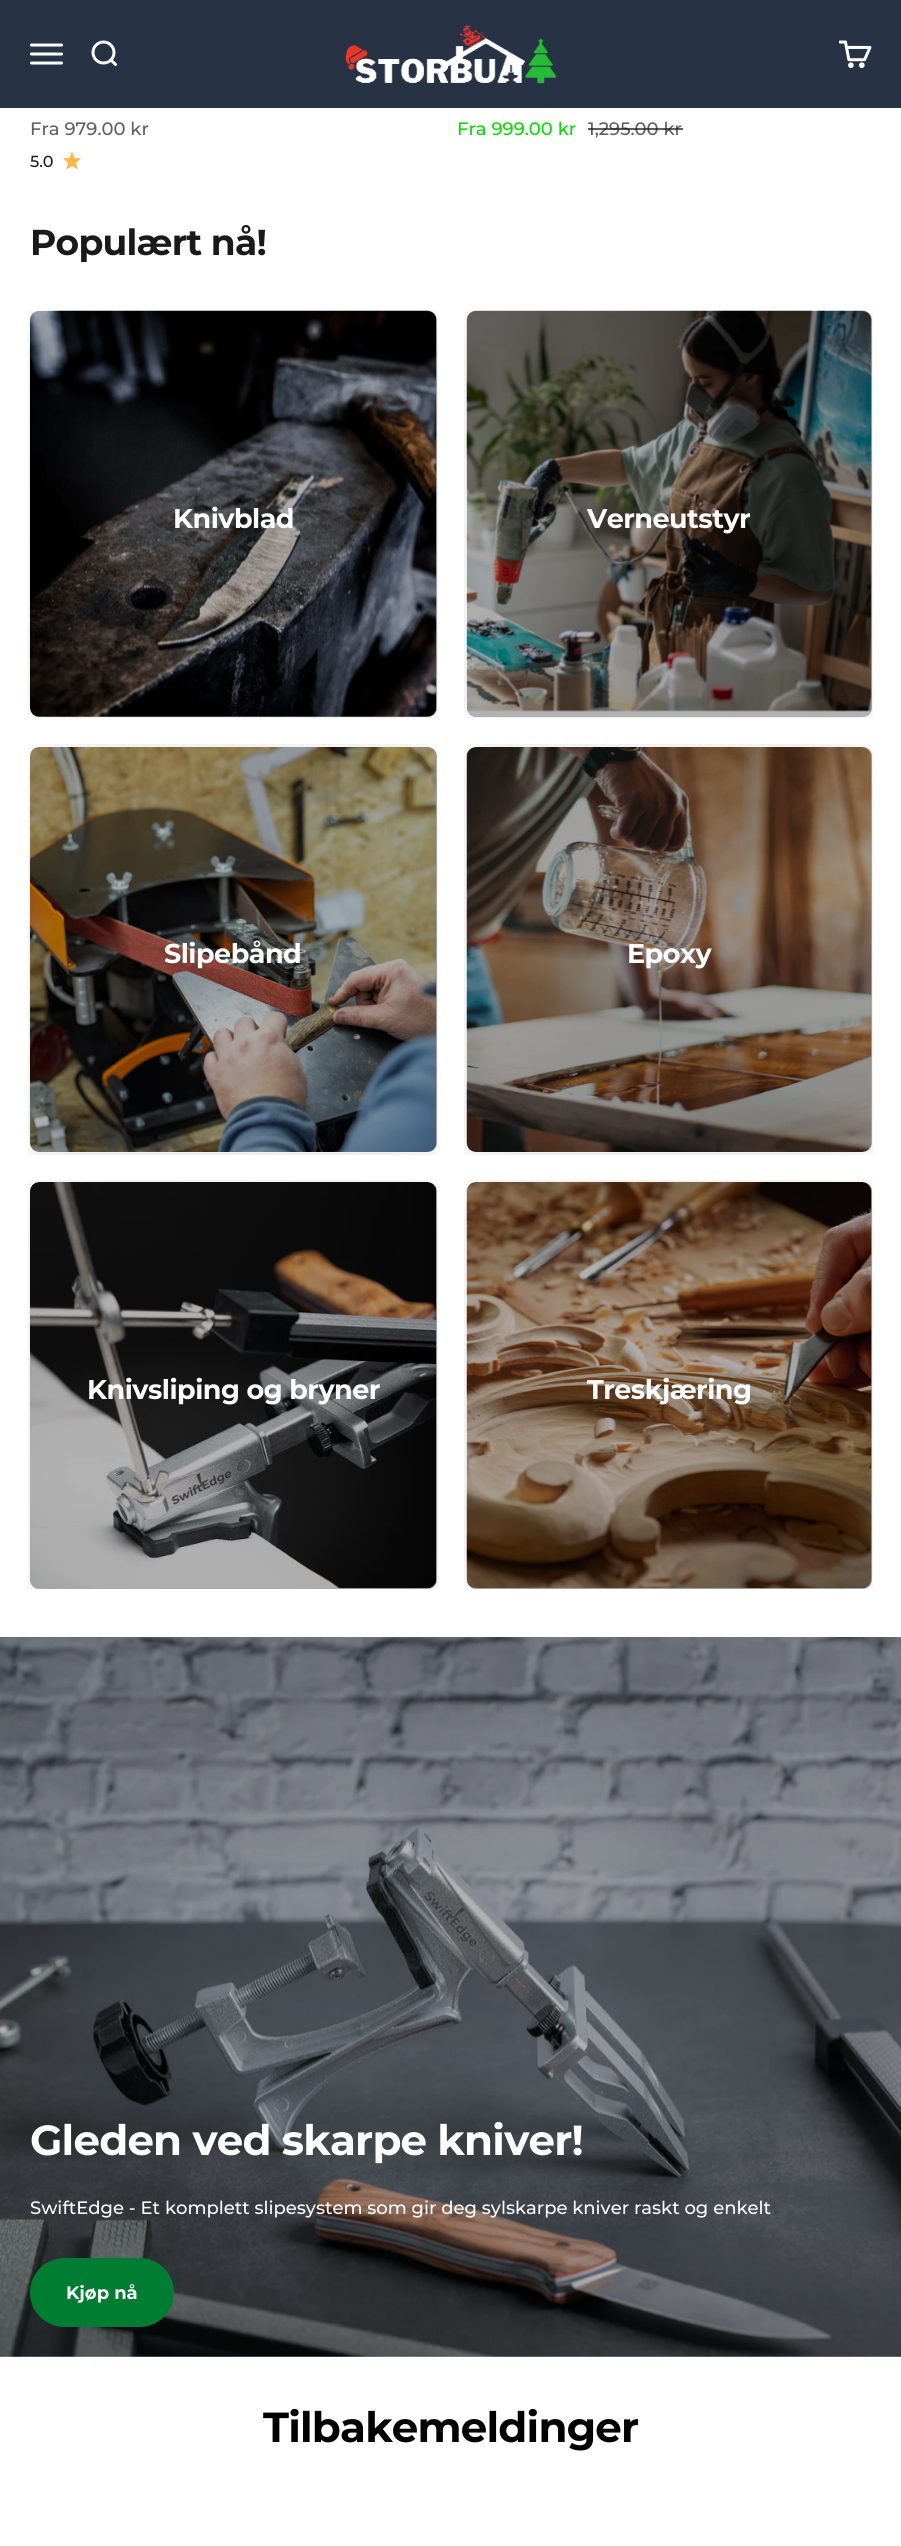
import math
import cairo


def use_color(cr, r, g, b):
  cr.set_source_rgb(r / 255, g / 255, b / 255)

def text(cr, x, y, s, family, size, color, bold=False, italic=False):
  cr.select_font_face(family, cairo.FONT_SLANT_ITALIC if italic else cairo.FONT_SLANT_NORMAL, cairo.FONT_WEIGHT_BOLD if bold else cairo.FONT_WEIGHT_NORMAL)
  cr.set_font_size(size)
  use_color(cr, *color)
  cr.move_to(x, y)
  cr.show_text(s)

def spaced_text(cr, x, y, s, letter, word):
  cr.move_to(x, y)
  for ch in s:
    cr.show_text(ch)
    cr.rel_move_to(letter + word * (ch == ' '), 0)

def box(cr, x, y, w, h, *color):
  use_color(cr, *color)
  cr.rectangle(x, y, w, h)
  cr.fill()

def round_rect(cr, x, y, w, h, r):
  cr.new_sub_path()
  for i, (u, v) in enumerate([(x + w - r, y + h - r), (x + r, y + h - r), (x + r, y + r), (x + w - r, y + r)]):
    cr.arc(u, v, r, i * math.pi / 2, (i + 1) * math.pi / 2)
  cr.close_path()

def picture(cr, path, x, y, w, h):
  cr.save()
  cr.set_source_surface(cairo.ImageSurface.create_from_png(path), x, y)
  cr.rectangle(x, y, w, h)
  cr.fill()
  cr.restore()

def draw(cr):
  use_color(cr, 255, 255, 255)
  cr.paint()
  box(cr, 0, 2356, 901, 1, 179, 179, 179)
  box(cr, 0, 0, 901, 108, 39, 50, 69)
  cr.new_path()
  cr.move_to(31.5, 45)
  cr.line_to(61.5, 45)
  cr.move_to(31.5, 54)
  cr.line_to(61.5, 54)
  cr.move_to(31.5, 63)
  cr.line_to(61.5, 63)
  use_color(cr, 255, 255, 255)
  cr.set_line_width(3)
  cr.set_line_cap(cairo.LINE_CAP_ROUND)
  cr.stroke()
  cr.arc(103.5, 52.5, 10.5, 0, 2 * math.pi)
  cr.set_line_cap(cairo.LINE_CAP_BUTT)
  cr.stroke()
  cr.new_path()
  cr.move_to(111, 60)
  cr.line_to(115.5, 64.5)
  cr.set_line_cap(cairo.LINE_CAP_ROUND)
  cr.set_line_join(cairo.LINE_JOIN_ROUND)
  cr.stroke()
  picture(cr, "img_01.png", 345, 25, 212, 59)
  picture(cr, "img_02.png", 839, 40, 33, 29)
  picture(cr, "img_03.png", 63, 152, 18, 18)
  picture(cr, "img_04.png", 28, 310, 410, 408)
  cr.set_source_rgba(0, 0, 0, 0.3)
  round_rect(cr, 30, 311, 407, 406, 9)
  cr.fill()
  picture(cr, "img_05.png", 464, 310, 409, 408)
  round_rect(cr, 467, 311, 405, 406, 9)
  cr.fill()
  picture(cr, "img_06.png", 28, 744, 410, 411)
  round_rect(cr, 30, 747, 407, 405, 9)
  cr.fill()
  picture(cr, "img_07.png", 464, 744, 409, 411)
  round_rect(cr, 467, 747, 405, 405, 9)
  cr.fill()
  picture(cr, "img_08.png", 28, 1180, 410, 409)
  round_rect(cr, 30, 1182, 407, 407, 9)
  cr.fill()
  picture(cr, "img_09.png", 464, 1180, 409, 409)
  round_rect(cr, 467, 1182, 405, 407, 9)
  cr.fill()
  picture(cr, "img_10.png", 0, 1637, 901, 720)
  use_color(cr, 0, 125, 50)
  round_rect(cr, 30, 2258, 144, 69, 34.5)
  cr.fill()
  text(cr, 30, 135, "Fra 979.00 kr", "Montserrat Medium", 18, (95, 95, 95))
  text(cr, 30, 167, "5.0", "Montserrat Medium", 16, (26, 26, 26))
  text(cr, 457, 135, "Fra 999.00 kr", "Montserrat Medium", 18, (1, 223, 0))
  text(cr, 588, 135, "1,295.00 kr", "Montserrat Medium", 18, (95, 95, 95))
  cr.set_source_rgba(0.102, 0.102, 0.102, 0.7)
  cr.rectangle(588, 128, 95, 2)
  cr.fill()
  cr.select_font_face("Montserrat", cairo.FONT_SLANT_NORMAL, cairo.FONT_WEIGHT_BOLD)
  cr.set_font_size(36)
  use_color(cr, 26, 26, 26)
  spaced_text(cr, 30, 255, "Populært nå!", -0.75, 0)
  cr.set_font_size(27)
  use_color(cr, 255, 255, 255)
  spaced_text(cr, 173, 528, "Knivblad", -0.5, 0)
  spaced_text(cr, 587, 528, "Verneutstyr", -0.5, 0)
  spaced_text(cr, 164, 963, "Slipebånd", -0.5, 0)
  spaced_text(cr, 627, 963, "Epoxy", -0.5, 0)
  spaced_text(cr, 87, 1399, "Knivsliping og bryner", -0.5, 0)
  spaced_text(cr, 587, 1399, "Treskjæring", -0.5, 0)
  cr.set_font_size(42)
  spaced_text(cr, 30, 2155, "Gleden ved skarpe kniver!", -0.8, 0)
  text(cr, 30, 2214, "SwiftEdge - Et komplett slipesystem som gir deg sylskarpe kniver raskt og enkelt", "Montserrat Medium", 18, (255, 255, 255))
  text(cr, 66, 2299, "Kjøp nå", "Montserrat", 18, (255, 255, 255), bold=True)
  cr.set_font_size(42)
  use_color(cr, 0, 0, 0)
  spaced_text(cr, 263, 2442, "Tilbakemeldinger", -0.8, 0)


surface = cairo.ImageSurface(cairo.FORMAT_RGB24, 901, 2546)
cr = cairo.Context(surface)
options = cairo.FontOptions()
options.set_hint_metrics(cairo.HINT_METRICS_OFF)
options.set_hint_style(cairo.HINT_STYLE_NONE)
cr.set_font_options(options)
cr.set_miter_limit(4)
draw(cr)
surface.write_to_png("out.png")
